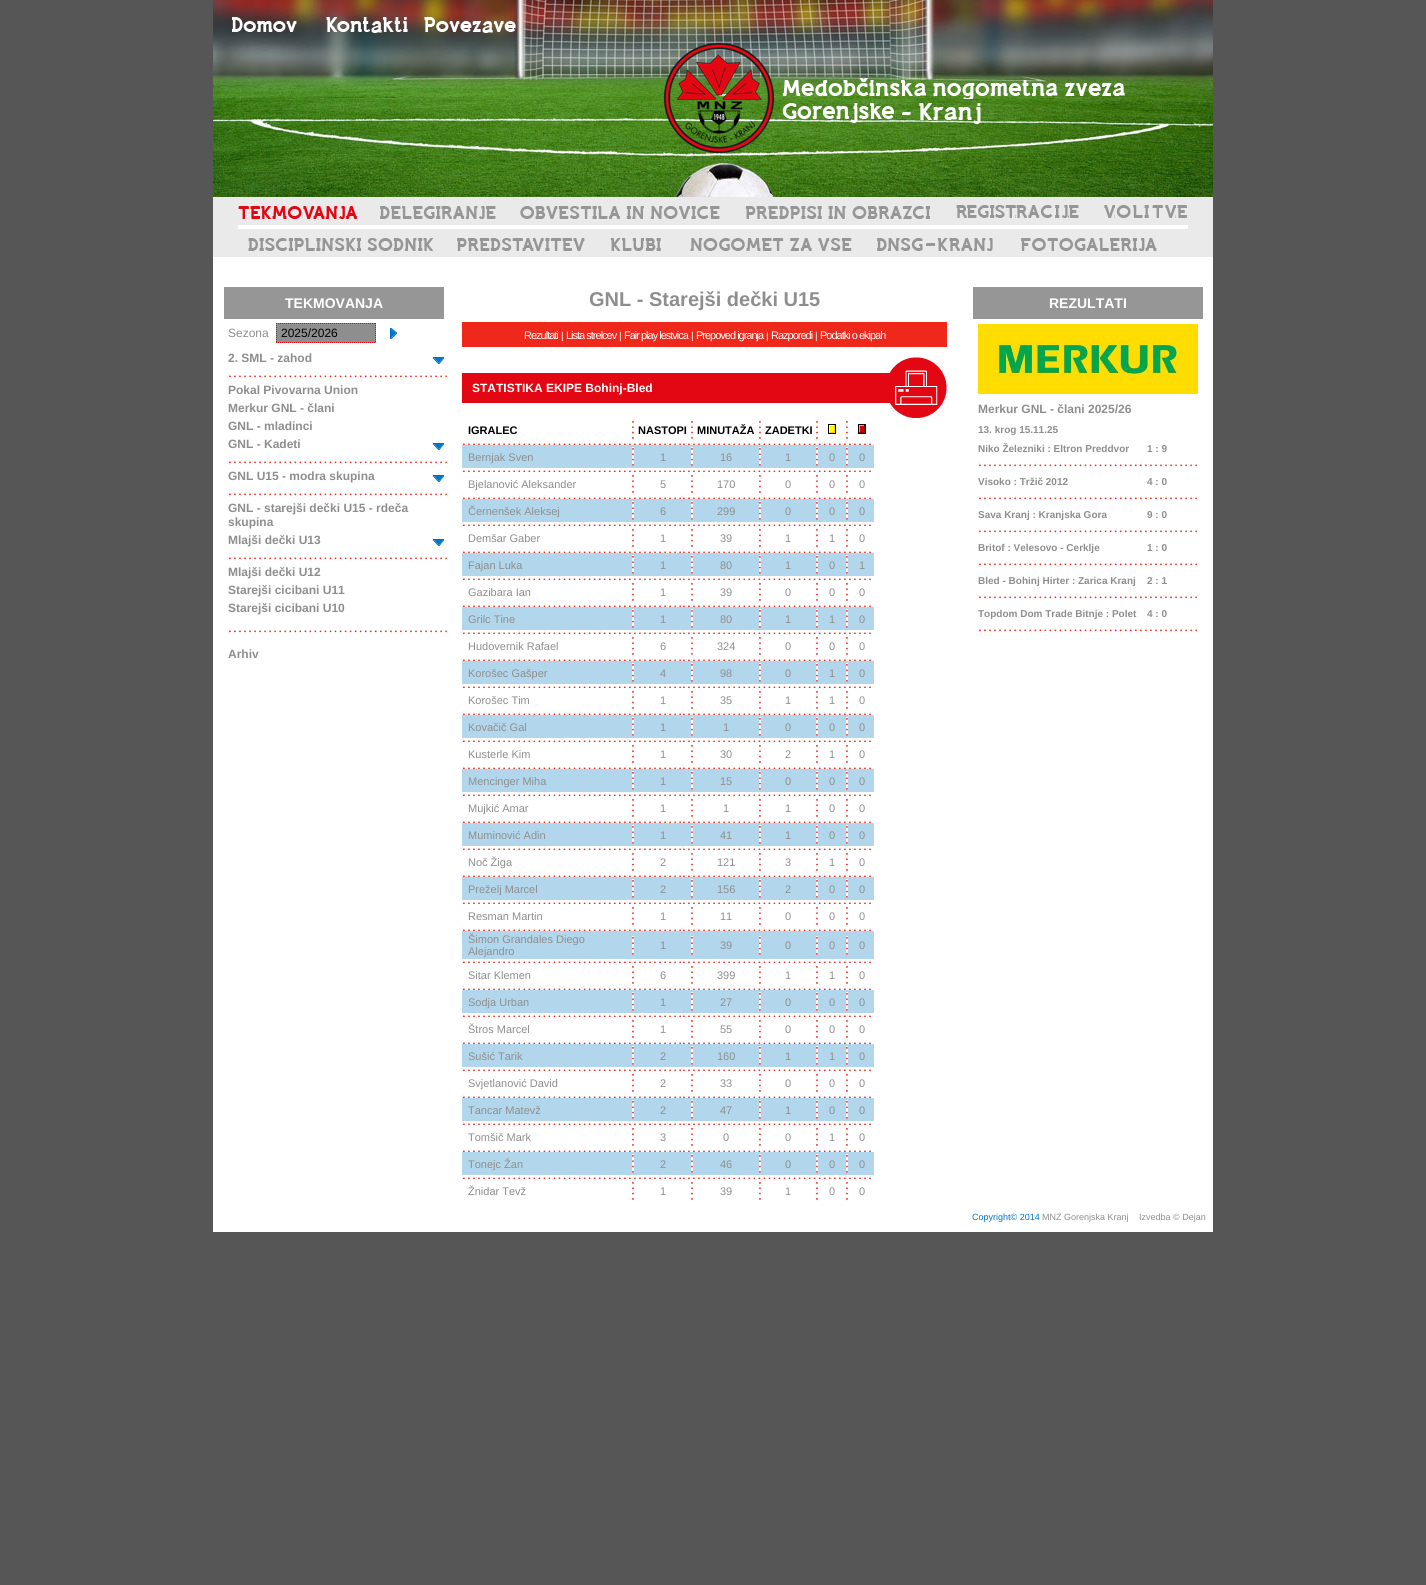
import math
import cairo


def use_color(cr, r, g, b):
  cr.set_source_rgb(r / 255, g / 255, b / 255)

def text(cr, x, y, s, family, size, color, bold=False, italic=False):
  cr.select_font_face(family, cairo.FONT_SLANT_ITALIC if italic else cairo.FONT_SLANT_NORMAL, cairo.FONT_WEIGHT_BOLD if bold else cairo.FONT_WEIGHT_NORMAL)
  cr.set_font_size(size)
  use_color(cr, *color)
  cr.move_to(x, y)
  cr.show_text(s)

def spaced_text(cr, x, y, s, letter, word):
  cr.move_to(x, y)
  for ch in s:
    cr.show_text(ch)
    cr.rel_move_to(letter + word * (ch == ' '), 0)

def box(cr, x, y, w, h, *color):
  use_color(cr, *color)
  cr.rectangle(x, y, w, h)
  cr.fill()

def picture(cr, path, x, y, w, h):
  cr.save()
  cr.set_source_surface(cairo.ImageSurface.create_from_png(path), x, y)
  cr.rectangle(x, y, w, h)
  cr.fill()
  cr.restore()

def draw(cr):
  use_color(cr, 86, 86, 86)
  cr.paint()
  box(cr, 213, 257, 1000, 975, 255, 255, 255)
  picture(cr, "img_01.png", 213, 0, 1000, 197)
  picture(cr, "img_02.png", 664, 43, 461, 110)
  picture(cr, "img_03.png", 232, 17, 65, 15)
  picture(cr, "img_04.png", 326, 17, 82, 16)
  picture(cr, "img_05.png", 424, 17, 92, 16)
  box(cr, 213, 197, 1000, 60, 234, 234, 234)
  picture(cr, "img_06.png", 238, 206, 119, 13)
  picture(cr, "img_07.png", 380, 206, 116, 13)
  picture(cr, "img_08.png", 520, 206, 200, 13)
  picture(cr, "img_09.png", 745, 206, 185, 13)
  picture(cr, "img_10.png", 956, 205, 124, 13)
  picture(cr, "img_11.png", 1104, 205, 83, 13)
  box(cr, 238, 225, 950, 4, 255, 255, 255)
  picture(cr, "img_12.png", 248, 238, 186, 13)
  picture(cr, "img_13.png", 457, 238, 128, 13)
  picture(cr, "img_14.png", 610, 238, 51, 13)
  picture(cr, "img_15.png", 690, 238, 162, 13)
  picture(cr, "img_16.png", 877, 238, 116, 13)
  picture(cr, "img_17.png", 1021, 238, 136, 13)
  box(cr, 224, 287, 220, 32, 150, 150, 150)
  box(cr, 276, 323, 100, 20, 142, 142, 142)
  cr.new_path()
  cr.move_to(276, 323.5)
  cr.line_to(376, 323.5)
  use_color(cr, 227, 6, 19)
  cr.set_line_width(1)
  cr.set_dash([1, 1])
  cr.stroke()
  cr.new_path()
  cr.move_to(375.5, 323)
  cr.line_to(375.5, 343)
  cr.stroke()
  cr.new_path()
  cr.move_to(276, 342.5)
  cr.line_to(376, 342.5)
  cr.stroke()
  cr.new_path()
  cr.move_to(276.5, 323)
  cr.line_to(276.5, 343)
  cr.stroke()
  picture(cr, "img_18.png", 390, 328, 7, 11)
  picture(cr, "img_19.png", 433, 357, 11, 7)
  picture(cr, "img_20.png", 228, 373, 220, 6)
  picture(cr, "img_19.png", 433, 443, 11, 7)
  picture(cr, "img_20.png", 228, 459, 220, 6)
  picture(cr, "img_19.png", 433, 475, 11, 7)
  picture(cr, "img_20.png", 228, 491, 220, 6)
  picture(cr, "img_19.png", 433, 539, 11, 7)
  picture(cr, "img_20.png", 228, 555, 220, 6)
  picture(cr, "img_20.png", 228, 628, 220, 6)
  box(cr, 462, 322, 485, 25, 238, 40, 26)
  box(cr, 462, 373, 417, 30, 227, 6, 19)
  picture(cr, "img_21.png", 879, 357, 68, 61)
  picture(cr, "img_22.png", 632, 420, 2, 19)
  picture(cr, "img_22.png", 691, 420, 2, 19)
  picture(cr, "img_22.png", 759, 420, 2, 19)
  picture(cr, "img_22.png", 816, 420, 2, 19)
  picture(cr, "img_23.png", 828, 424, 8, 10)
  picture(cr, "img_22.png", 846, 420, 2, 19)
  picture(cr, "img_24.png", 858, 424, 8, 10)
  picture(cr, "img_25.png", 462, 441, 409, 4)
  box(cr, 462, 445, 412, 23, 178, 215, 237)
  picture(cr, "img_22.png", 632, 447, 2, 19)
  picture(cr, "img_22.png", 691, 447, 2, 19)
  picture(cr, "img_22.png", 759, 447, 2, 19)
  picture(cr, "img_22.png", 816, 447, 2, 19)
  picture(cr, "img_22.png", 846, 447, 2, 19)
  picture(cr, "img_25.png", 462, 468, 409, 4)
  picture(cr, "img_22.png", 632, 474, 2, 19)
  picture(cr, "img_22.png", 691, 474, 2, 19)
  picture(cr, "img_22.png", 759, 474, 2, 19)
  picture(cr, "img_22.png", 816, 474, 2, 19)
  picture(cr, "img_22.png", 846, 474, 2, 19)
  picture(cr, "img_25.png", 462, 495, 409, 4)
  box(cr, 462, 499, 412, 23, 178, 215, 237)
  picture(cr, "img_22.png", 632, 501, 2, 19)
  picture(cr, "img_22.png", 691, 501, 2, 19)
  picture(cr, "img_22.png", 759, 501, 2, 19)
  picture(cr, "img_22.png", 816, 501, 2, 19)
  picture(cr, "img_22.png", 846, 501, 2, 19)
  picture(cr, "img_25.png", 462, 522, 409, 4)
  picture(cr, "img_22.png", 632, 528, 2, 19)
  picture(cr, "img_22.png", 691, 528, 2, 19)
  picture(cr, "img_22.png", 759, 528, 2, 19)
  picture(cr, "img_22.png", 816, 528, 2, 19)
  picture(cr, "img_22.png", 846, 528, 2, 19)
  picture(cr, "img_25.png", 462, 549, 409, 4)
  box(cr, 462, 553, 412, 23, 178, 215, 237)
  picture(cr, "img_22.png", 632, 555, 2, 19)
  picture(cr, "img_22.png", 691, 555, 2, 19)
  picture(cr, "img_22.png", 759, 555, 2, 19)
  picture(cr, "img_22.png", 816, 555, 2, 19)
  picture(cr, "img_22.png", 846, 555, 2, 19)
  picture(cr, "img_25.png", 462, 576, 409, 4)
  picture(cr, "img_22.png", 632, 582, 2, 19)
  picture(cr, "img_22.png", 691, 582, 2, 19)
  picture(cr, "img_22.png", 759, 582, 2, 19)
  picture(cr, "img_22.png", 816, 582, 2, 19)
  picture(cr, "img_22.png", 846, 582, 2, 19)
  picture(cr, "img_25.png", 462, 603, 409, 4)
  box(cr, 462, 607, 412, 23, 178, 215, 237)
  picture(cr, "img_22.png", 632, 609, 2, 19)
  picture(cr, "img_22.png", 691, 609, 2, 19)
  picture(cr, "img_22.png", 759, 609, 2, 19)
  picture(cr, "img_22.png", 816, 609, 2, 19)
  picture(cr, "img_22.png", 846, 609, 2, 19)
  picture(cr, "img_25.png", 462, 630, 409, 4)
  picture(cr, "img_22.png", 632, 636, 2, 19)
  picture(cr, "img_22.png", 691, 636, 2, 19)
  picture(cr, "img_22.png", 759, 636, 2, 19)
  picture(cr, "img_22.png", 816, 636, 2, 19)
  picture(cr, "img_22.png", 846, 636, 2, 19)
  picture(cr, "img_25.png", 462, 657, 409, 4)
  box(cr, 462, 661, 412, 23, 178, 215, 237)
  picture(cr, "img_22.png", 632, 663, 2, 19)
  picture(cr, "img_22.png", 691, 663, 2, 19)
  picture(cr, "img_22.png", 759, 663, 2, 19)
  picture(cr, "img_22.png", 816, 663, 2, 19)
  picture(cr, "img_22.png", 846, 663, 2, 19)
  picture(cr, "img_25.png", 462, 684, 409, 4)
  picture(cr, "img_22.png", 632, 690, 2, 19)
  picture(cr, "img_22.png", 691, 690, 2, 19)
  picture(cr, "img_22.png", 759, 690, 2, 19)
  picture(cr, "img_22.png", 816, 690, 2, 19)
  picture(cr, "img_22.png", 846, 690, 2, 19)
  picture(cr, "img_25.png", 462, 711, 409, 4)
  box(cr, 462, 715, 412, 23, 178, 215, 237)
  picture(cr, "img_22.png", 632, 717, 2, 19)
  picture(cr, "img_22.png", 691, 717, 2, 19)
  picture(cr, "img_22.png", 759, 717, 2, 19)
  picture(cr, "img_22.png", 816, 717, 2, 19)
  picture(cr, "img_22.png", 846, 717, 2, 19)
  picture(cr, "img_25.png", 462, 738, 409, 4)
  picture(cr, "img_22.png", 632, 744, 2, 19)
  picture(cr, "img_22.png", 691, 744, 2, 19)
  picture(cr, "img_22.png", 759, 744, 2, 19)
  picture(cr, "img_22.png", 816, 744, 2, 19)
  picture(cr, "img_22.png", 846, 744, 2, 19)
  picture(cr, "img_25.png", 462, 765, 409, 4)
  box(cr, 462, 769, 412, 23, 178, 215, 237)
  picture(cr, "img_22.png", 632, 771, 2, 19)
  picture(cr, "img_22.png", 691, 771, 2, 19)
  picture(cr, "img_22.png", 759, 771, 2, 19)
  picture(cr, "img_22.png", 816, 771, 2, 19)
  picture(cr, "img_22.png", 846, 771, 2, 19)
  picture(cr, "img_25.png", 462, 792, 409, 4)
  picture(cr, "img_22.png", 632, 798, 2, 19)
  picture(cr, "img_22.png", 691, 798, 2, 19)
  picture(cr, "img_22.png", 759, 798, 2, 19)
  picture(cr, "img_22.png", 816, 798, 2, 19)
  picture(cr, "img_22.png", 846, 798, 2, 19)
  picture(cr, "img_25.png", 462, 819, 409, 4)
  box(cr, 462, 823, 412, 23, 178, 215, 237)
  picture(cr, "img_22.png", 632, 825, 2, 19)
  picture(cr, "img_22.png", 691, 825, 2, 19)
  picture(cr, "img_22.png", 759, 825, 2, 19)
  picture(cr, "img_22.png", 816, 825, 2, 19)
  picture(cr, "img_22.png", 846, 825, 2, 19)
  picture(cr, "img_25.png", 462, 846, 409, 4)
  picture(cr, "img_22.png", 632, 852, 2, 19)
  picture(cr, "img_22.png", 691, 852, 2, 19)
  picture(cr, "img_22.png", 759, 852, 2, 19)
  picture(cr, "img_22.png", 816, 852, 2, 19)
  picture(cr, "img_22.png", 846, 852, 2, 19)
  picture(cr, "img_25.png", 462, 873, 409, 4)
  box(cr, 462, 877, 412, 23, 178, 215, 237)
  picture(cr, "img_22.png", 632, 879, 2, 19)
  picture(cr, "img_22.png", 691, 879, 2, 19)
  picture(cr, "img_22.png", 759, 879, 2, 19)
  picture(cr, "img_22.png", 816, 879, 2, 19)
  picture(cr, "img_22.png", 846, 879, 2, 19)
  picture(cr, "img_25.png", 462, 900, 409, 4)
  picture(cr, "img_22.png", 632, 906, 2, 19)
  picture(cr, "img_22.png", 691, 906, 2, 19)
  picture(cr, "img_22.png", 759, 906, 2, 19)
  picture(cr, "img_22.png", 816, 906, 2, 19)
  picture(cr, "img_22.png", 846, 906, 2, 19)
  picture(cr, "img_25.png", 462, 927, 409, 4)
  box(cr, 462, 931, 412, 28, 178, 215, 237)
  picture(cr, "img_22.png", 632, 936, 2, 19)
  picture(cr, "img_22.png", 691, 936, 2, 19)
  picture(cr, "img_22.png", 759, 936, 2, 19)
  picture(cr, "img_22.png", 816, 936, 2, 19)
  picture(cr, "img_22.png", 846, 936, 2, 19)
  picture(cr, "img_25.png", 462, 959, 409, 4)
  picture(cr, "img_22.png", 632, 965, 2, 19)
  picture(cr, "img_22.png", 691, 965, 2, 19)
  picture(cr, "img_22.png", 759, 965, 2, 19)
  picture(cr, "img_22.png", 816, 965, 2, 19)
  picture(cr, "img_22.png", 846, 965, 2, 19)
  picture(cr, "img_25.png", 462, 986, 409, 4)
  box(cr, 462, 990, 412, 23, 178, 215, 237)
  picture(cr, "img_22.png", 632, 992, 2, 19)
  picture(cr, "img_22.png", 691, 992, 2, 19)
  picture(cr, "img_22.png", 759, 992, 2, 19)
  picture(cr, "img_22.png", 816, 992, 2, 19)
  picture(cr, "img_22.png", 846, 992, 2, 19)
  picture(cr, "img_25.png", 462, 1013, 409, 4)
  picture(cr, "img_22.png", 632, 1019, 2, 19)
  picture(cr, "img_22.png", 691, 1019, 2, 19)
  picture(cr, "img_22.png", 759, 1019, 2, 19)
  picture(cr, "img_22.png", 816, 1019, 2, 19)
  picture(cr, "img_22.png", 846, 1019, 2, 19)
  picture(cr, "img_25.png", 462, 1040, 409, 4)
  box(cr, 462, 1044, 412, 23, 178, 215, 237)
  picture(cr, "img_22.png", 632, 1046, 2, 19)
  picture(cr, "img_22.png", 691, 1046, 2, 19)
  picture(cr, "img_22.png", 759, 1046, 2, 19)
  picture(cr, "img_22.png", 816, 1046, 2, 19)
  picture(cr, "img_22.png", 846, 1046, 2, 19)
  picture(cr, "img_25.png", 462, 1067, 409, 4)
  picture(cr, "img_22.png", 632, 1073, 2, 19)
  picture(cr, "img_22.png", 691, 1073, 2, 19)
  picture(cr, "img_22.png", 759, 1073, 2, 19)
  picture(cr, "img_22.png", 816, 1073, 2, 19)
  picture(cr, "img_22.png", 846, 1073, 2, 19)
  picture(cr, "img_25.png", 462, 1094, 409, 4)
  box(cr, 462, 1098, 412, 23, 178, 215, 237)
  picture(cr, "img_22.png", 632, 1100, 2, 19)
  picture(cr, "img_22.png", 691, 1100, 2, 19)
  picture(cr, "img_22.png", 759, 1100, 2, 19)
  picture(cr, "img_22.png", 816, 1100, 2, 19)
  picture(cr, "img_22.png", 846, 1100, 2, 19)
  picture(cr, "img_25.png", 462, 1121, 409, 4)
  picture(cr, "img_22.png", 632, 1127, 2, 19)
  picture(cr, "img_22.png", 691, 1127, 2, 19)
  picture(cr, "img_22.png", 759, 1127, 2, 19)
  picture(cr, "img_22.png", 816, 1127, 2, 19)
  picture(cr, "img_22.png", 846, 1127, 2, 19)
  picture(cr, "img_25.png", 462, 1148, 409, 4)
  box(cr, 462, 1152, 412, 23, 178, 215, 237)
  picture(cr, "img_22.png", 632, 1154, 2, 19)
  picture(cr, "img_22.png", 691, 1154, 2, 19)
  picture(cr, "img_22.png", 759, 1154, 2, 19)
  picture(cr, "img_22.png", 816, 1154, 2, 19)
  picture(cr, "img_22.png", 846, 1154, 2, 19)
  picture(cr, "img_25.png", 462, 1175, 409, 4)
  picture(cr, "img_22.png", 632, 1181, 2, 19)
  picture(cr, "img_22.png", 691, 1181, 2, 19)
  picture(cr, "img_22.png", 759, 1181, 2, 19)
  picture(cr, "img_22.png", 816, 1181, 2, 19)
  picture(cr, "img_22.png", 846, 1181, 2, 19)
  box(cr, 973, 287, 230, 32, 150, 150, 150)
  picture(cr, "img_26.png", 978, 324, 220, 70)
  picture(cr, "img_20.png", 978, 462, 220, 6)
  picture(cr, "img_20.png", 978, 495, 220, 6)
  picture(cr, "img_20.png", 978, 528, 220, 6)
  picture(cr, "img_20.png", 978, 561, 220, 6)
  picture(cr, "img_20.png", 978, 594, 220, 6)
  picture(cr, "img_20.png", 978, 627, 220, 6)
  text(cr, 285, 308, "TEKMOVANJA", "Liberation Sans", 14, (255, 255, 255), bold=True)
  text(cr, 228, 337, "Sezona", "Liberation Sans", 12, (142, 142, 142))
  text(cr, 281, 337, "2025/2026", "Liberation Sans", 12, (0, 0, 0))
  text(cr, 228, 362, "2. SML - zahod", "Liberation Sans", 12, (142, 142, 142), bold=True)
  text(cr, 228, 394, "Pokal Pivovarna Union", "Liberation Sans", 12, (142, 142, 142), bold=True)
  text(cr, 228, 412, "Merkur GNL - člani", "Liberation Sans", 12, (142, 142, 142), bold=True)
  text(cr, 228, 430, "GNL - mladinci", "Liberation Sans", 12, (142, 142, 142), bold=True)
  text(cr, 228, 448, "GNL - Kadeti", "Liberation Sans", 12, (142, 142, 142), bold=True)
  text(cr, 228, 480, "GNL U15 - modra skupina", "Liberation Sans", 12, (142, 142, 142), bold=True)
  text(cr, 228, 512, "GNL - starejši dečki U15 - rdeča", "Liberation Sans", 12, (142, 142, 142), bold=True)
  text(cr, 228, 526, "skupina", "Liberation Sans", 12, (142, 142, 142), bold=True)
  text(cr, 228, 544, "Mlajši dečki U13", "Liberation Sans", 12, (142, 142, 142), bold=True)
  text(cr, 228, 576, "Mlajši dečki U12", "Liberation Sans", 12, (142, 142, 142), bold=True)
  text(cr, 228, 594, "Starejši cicibani U11", "Liberation Sans", 12, (142, 142, 142), bold=True)
  text(cr, 228, 612, "Starejši cicibani U10", "Liberation Sans", 12, (142, 142, 142), bold=True)
  text(cr, 228, 658, "Arhiv", "Liberation Sans", 12, (142, 142, 142), bold=True)
  text(cr, 589, 306, "GNL - Starejši dečki U15", "Liberation Sans", 20, (142, 142, 142), bold=True)
  cr.select_font_face("Liberation Sans")
  cr.set_font_size(11)
  use_color(cr, 255, 255, 255)
  spaced_text(cr, 524, 339, "Rezultati", -1, 0)
  text(cr, 561, 339, "|", "Liberation Sans", 10, (255, 255, 255))
  cr.set_font_size(11)
  spaced_text(cr, 566, 339, "Lista strelcev", -1, 0)
  text(cr, 619, 339, "|", "Liberation Sans", 10, (255, 255, 255))
  cr.set_font_size(11)
  spaced_text(cr, 624, 339, "Fair play lestvica", -1, 0)
  text(cr, 691, 339, "|", "Liberation Sans", 10, (255, 255, 255))
  cr.set_font_size(11)
  spaced_text(cr, 696, 339, "Prepoved igranja", -1, 0)
  text(cr, 766, 339, "|", "Liberation Sans", 10, (255, 255, 255))
  cr.set_font_size(11)
  spaced_text(cr, 771, 339, "Razporedi", -1, 0)
  text(cr, 815, 339, "|", "Liberation Sans", 10, (255, 255, 255))
  cr.set_font_size(11)
  spaced_text(cr, 820, 339, "Podatki o ekipah", -1, 0)
  text(cr, 472, 392, "STATISTIKA EKIPE Bohinj-Bled", "Liberation Sans", 12, (255, 255, 255), bold=True)
  text(cr, 468, 434, "IGRALEC", "Liberation Sans", 11, (0, 0, 0), bold=True)
  text(cr, 638, 434, "NASTOPI", "Liberation Sans", 11, (0, 0, 0), bold=True)
  text(cr, 697, 434, "MINUTAŽA", "Liberation Sans", 11, (0, 0, 0), bold=True)
  text(cr, 765, 434, "ZADETKI", "Liberation Sans", 11, (0, 0, 0), bold=True)
  text(cr, 468, 461, "Bernjak Sven", "Liberation Sans", 11, (142, 142, 142))
  text(cr, 660, 461, "1", "Liberation Sans", 11, (142, 142, 142))
  text(cr, 720, 461, "16", "Liberation Sans", 11, (142, 142, 142))
  text(cr, 785, 461, "1", "Liberation Sans", 11, (142, 142, 142))
  text(cr, 829, 461, "0", "Liberation Sans", 11, (142, 142, 142))
  text(cr, 859, 461, "0", "Liberation Sans", 11, (142, 142, 142))
  text(cr, 468, 488, "Bjelanović Aleksander", "Liberation Sans", 11, (142, 142, 142))
  text(cr, 660, 488, "5", "Liberation Sans", 11, (142, 142, 142))
  text(cr, 717, 488, "170", "Liberation Sans", 11, (142, 142, 142))
  text(cr, 785, 488, "0", "Liberation Sans", 11, (142, 142, 142))
  text(cr, 829, 488, "0", "Liberation Sans", 11, (142, 142, 142))
  text(cr, 859, 488, "0", "Liberation Sans", 11, (142, 142, 142))
  text(cr, 468, 515, "Černenšek Aleksej", "Liberation Sans", 11, (142, 142, 142))
  text(cr, 660, 515, "6", "Liberation Sans", 11, (142, 142, 142))
  text(cr, 717, 515, "299", "Liberation Sans", 11, (142, 142, 142))
  text(cr, 785, 515, "0", "Liberation Sans", 11, (142, 142, 142))
  text(cr, 829, 515, "0", "Liberation Sans", 11, (142, 142, 142))
  text(cr, 859, 515, "0", "Liberation Sans", 11, (142, 142, 142))
  text(cr, 468, 542, "Demšar Gaber", "Liberation Sans", 11, (142, 142, 142))
  text(cr, 660, 542, "1", "Liberation Sans", 11, (142, 142, 142))
  text(cr, 720, 542, "39", "Liberation Sans", 11, (142, 142, 142))
  text(cr, 785, 542, "1", "Liberation Sans", 11, (142, 142, 142))
  text(cr, 829, 542, "1", "Liberation Sans", 11, (142, 142, 142))
  text(cr, 859, 542, "0", "Liberation Sans", 11, (142, 142, 142))
  text(cr, 468, 569, "Fajan Luka", "Liberation Sans", 11, (142, 142, 142))
  text(cr, 660, 569, "1", "Liberation Sans", 11, (142, 142, 142))
  text(cr, 720, 569, "80", "Liberation Sans", 11, (142, 142, 142))
  text(cr, 785, 569, "1", "Liberation Sans", 11, (142, 142, 142))
  text(cr, 829, 569, "0", "Liberation Sans", 11, (142, 142, 142))
  text(cr, 859, 569, "1", "Liberation Sans", 11, (142, 142, 142))
  text(cr, 468, 596, "Gazibara Ian", "Liberation Sans", 11, (142, 142, 142))
  text(cr, 660, 596, "1", "Liberation Sans", 11, (142, 142, 142))
  text(cr, 720, 596, "39", "Liberation Sans", 11, (142, 142, 142))
  text(cr, 785, 596, "0", "Liberation Sans", 11, (142, 142, 142))
  text(cr, 829, 596, "0", "Liberation Sans", 11, (142, 142, 142))
  text(cr, 859, 596, "0", "Liberation Sans", 11, (142, 142, 142))
  text(cr, 468, 623, "Grilc Tine", "Liberation Sans", 11, (142, 142, 142))
  text(cr, 660, 623, "1", "Liberation Sans", 11, (142, 142, 142))
  text(cr, 720, 623, "80", "Liberation Sans", 11, (142, 142, 142))
  text(cr, 785, 623, "1", "Liberation Sans", 11, (142, 142, 142))
  text(cr, 829, 623, "1", "Liberation Sans", 11, (142, 142, 142))
  text(cr, 859, 623, "0", "Liberation Sans", 11, (142, 142, 142))
  text(cr, 468, 650, "Hudovernik Rafael", "Liberation Sans", 11, (142, 142, 142))
  text(cr, 660, 650, "6", "Liberation Sans", 11, (142, 142, 142))
  text(cr, 717, 650, "324", "Liberation Sans", 11, (142, 142, 142))
  text(cr, 785, 650, "0", "Liberation Sans", 11, (142, 142, 142))
  text(cr, 829, 650, "0", "Liberation Sans", 11, (142, 142, 142))
  text(cr, 859, 650, "0", "Liberation Sans", 11, (142, 142, 142))
  text(cr, 468, 677, "Korošec Gašper", "Liberation Sans", 11, (142, 142, 142))
  text(cr, 660, 677, "4", "Liberation Sans", 11, (142, 142, 142))
  text(cr, 720, 677, "98", "Liberation Sans", 11, (142, 142, 142))
  text(cr, 785, 677, "0", "Liberation Sans", 11, (142, 142, 142))
  text(cr, 829, 677, "1", "Liberation Sans", 11, (142, 142, 142))
  text(cr, 859, 677, "0", "Liberation Sans", 11, (142, 142, 142))
  text(cr, 468, 704, "Korošec Tim", "Liberation Sans", 11, (142, 142, 142))
  text(cr, 660, 704, "1", "Liberation Sans", 11, (142, 142, 142))
  text(cr, 720, 704, "35", "Liberation Sans", 11, (142, 142, 142))
  text(cr, 785, 704, "1", "Liberation Sans", 11, (142, 142, 142))
  text(cr, 829, 704, "1", "Liberation Sans", 11, (142, 142, 142))
  text(cr, 859, 704, "0", "Liberation Sans", 11, (142, 142, 142))
  text(cr, 468, 731, "Kovačič Gal", "Liberation Sans", 11, (142, 142, 142))
  text(cr, 660, 731, "1", "Liberation Sans", 11, (142, 142, 142))
  text(cr, 723, 731, "1", "Liberation Sans", 11, (142, 142, 142))
  text(cr, 785, 731, "0", "Liberation Sans", 11, (142, 142, 142))
  text(cr, 829, 731, "0", "Liberation Sans", 11, (142, 142, 142))
  text(cr, 859, 731, "0", "Liberation Sans", 11, (142, 142, 142))
  text(cr, 468, 758, "Kusterle Kim", "Liberation Sans", 11, (142, 142, 142))
  text(cr, 660, 758, "1", "Liberation Sans", 11, (142, 142, 142))
  text(cr, 720, 758, "30", "Liberation Sans", 11, (142, 142, 142))
  text(cr, 785, 758, "2", "Liberation Sans", 11, (142, 142, 142))
  text(cr, 829, 758, "1", "Liberation Sans", 11, (142, 142, 142))
  text(cr, 859, 758, "0", "Liberation Sans", 11, (142, 142, 142))
  text(cr, 468, 785, "Mencinger Miha", "Liberation Sans", 11, (142, 142, 142))
  text(cr, 660, 785, "1", "Liberation Sans", 11, (142, 142, 142))
  text(cr, 720, 785, "15", "Liberation Sans", 11, (142, 142, 142))
  text(cr, 785, 785, "0", "Liberation Sans", 11, (142, 142, 142))
  text(cr, 829, 785, "0", "Liberation Sans", 11, (142, 142, 142))
  text(cr, 859, 785, "0", "Liberation Sans", 11, (142, 142, 142))
  text(cr, 468, 812, "Mujkić Amar", "Liberation Sans", 11, (142, 142, 142))
  text(cr, 660, 812, "1", "Liberation Sans", 11, (142, 142, 142))
  text(cr, 723, 812, "1", "Liberation Sans", 11, (142, 142, 142))
  text(cr, 785, 812, "1", "Liberation Sans", 11, (142, 142, 142))
  text(cr, 829, 812, "0", "Liberation Sans", 11, (142, 142, 142))
  text(cr, 859, 812, "0", "Liberation Sans", 11, (142, 142, 142))
  text(cr, 468, 839, "Muminović Adin", "Liberation Sans", 11, (142, 142, 142))
  text(cr, 660, 839, "1", "Liberation Sans", 11, (142, 142, 142))
  text(cr, 720, 839, "41", "Liberation Sans", 11, (142, 142, 142))
  text(cr, 785, 839, "1", "Liberation Sans", 11, (142, 142, 142))
  text(cr, 829, 839, "0", "Liberation Sans", 11, (142, 142, 142))
  text(cr, 859, 839, "0", "Liberation Sans", 11, (142, 142, 142))
  text(cr, 468, 866, "Noč Žiga", "Liberation Sans", 11, (142, 142, 142))
  text(cr, 660, 866, "2", "Liberation Sans", 11, (142, 142, 142))
  text(cr, 717, 866, "121", "Liberation Sans", 11, (142, 142, 142))
  text(cr, 785, 866, "3", "Liberation Sans", 11, (142, 142, 142))
  text(cr, 829, 866, "1", "Liberation Sans", 11, (142, 142, 142))
  text(cr, 859, 866, "0", "Liberation Sans", 11, (142, 142, 142))
  text(cr, 468, 893, "Preželj Marcel", "Liberation Sans", 11, (142, 142, 142))
  text(cr, 660, 893, "2", "Liberation Sans", 11, (142, 142, 142))
  text(cr, 717, 893, "156", "Liberation Sans", 11, (142, 142, 142))
  text(cr, 785, 893, "2", "Liberation Sans", 11, (142, 142, 142))
  text(cr, 829, 893, "0", "Liberation Sans", 11, (142, 142, 142))
  text(cr, 859, 893, "0", "Liberation Sans", 11, (142, 142, 142))
  text(cr, 468, 920, "Resman Martin", "Liberation Sans", 11, (142, 142, 142))
  text(cr, 660, 920, "1", "Liberation Sans", 11, (142, 142, 142))
  text(cr, 720, 920, "11", "Liberation Sans", 11, (142, 142, 142))
  text(cr, 785, 920, "0", "Liberation Sans", 11, (142, 142, 142))
  text(cr, 829, 920, "0", "Liberation Sans", 11, (142, 142, 142))
  text(cr, 859, 920, "0", "Liberation Sans", 11, (142, 142, 142))
  text(cr, 468, 943, "Šimon Grandales Diego", "Liberation Sans", 11, (142, 142, 142))
  text(cr, 468, 955, "Alejandro", "Liberation Sans", 11, (142, 142, 142))
  text(cr, 660, 949, "1", "Liberation Sans", 11, (142, 142, 142))
  text(cr, 720, 949, "39", "Liberation Sans", 11, (142, 142, 142))
  text(cr, 785, 949, "0", "Liberation Sans", 11, (142, 142, 142))
  text(cr, 829, 949, "0", "Liberation Sans", 11, (142, 142, 142))
  text(cr, 859, 949, "0", "Liberation Sans", 11, (142, 142, 142))
  text(cr, 468, 979, "Sitar Klemen", "Liberation Sans", 11, (142, 142, 142))
  text(cr, 660, 979, "6", "Liberation Sans", 11, (142, 142, 142))
  text(cr, 717, 979, "399", "Liberation Sans", 11, (142, 142, 142))
  text(cr, 785, 979, "1", "Liberation Sans", 11, (142, 142, 142))
  text(cr, 829, 979, "1", "Liberation Sans", 11, (142, 142, 142))
  text(cr, 859, 979, "0", "Liberation Sans", 11, (142, 142, 142))
  text(cr, 468, 1006, "Sodja Urban", "Liberation Sans", 11, (142, 142, 142))
  text(cr, 660, 1006, "1", "Liberation Sans", 11, (142, 142, 142))
  text(cr, 720, 1006, "27", "Liberation Sans", 11, (142, 142, 142))
  text(cr, 785, 1006, "0", "Liberation Sans", 11, (142, 142, 142))
  text(cr, 829, 1006, "0", "Liberation Sans", 11, (142, 142, 142))
  text(cr, 859, 1006, "0", "Liberation Sans", 11, (142, 142, 142))
  text(cr, 468, 1033, "Štros Marcel", "Liberation Sans", 11, (142, 142, 142))
  text(cr, 660, 1033, "1", "Liberation Sans", 11, (142, 142, 142))
  text(cr, 720, 1033, "55", "Liberation Sans", 11, (142, 142, 142))
  text(cr, 785, 1033, "0", "Liberation Sans", 11, (142, 142, 142))
  text(cr, 829, 1033, "0", "Liberation Sans", 11, (142, 142, 142))
  text(cr, 859, 1033, "0", "Liberation Sans", 11, (142, 142, 142))
  text(cr, 468, 1060, "Sušić Tarik", "Liberation Sans", 11, (142, 142, 142))
  text(cr, 660, 1060, "2", "Liberation Sans", 11, (142, 142, 142))
  text(cr, 717, 1060, "160", "Liberation Sans", 11, (142, 142, 142))
  text(cr, 785, 1060, "1", "Liberation Sans", 11, (142, 142, 142))
  text(cr, 829, 1060, "1", "Liberation Sans", 11, (142, 142, 142))
  text(cr, 859, 1060, "0", "Liberation Sans", 11, (142, 142, 142))
  text(cr, 468, 1087, "Svjetlanović David", "Liberation Sans", 11, (142, 142, 142))
  text(cr, 660, 1087, "2", "Liberation Sans", 11, (142, 142, 142))
  text(cr, 720, 1087, "33", "Liberation Sans", 11, (142, 142, 142))
  text(cr, 785, 1087, "0", "Liberation Sans", 11, (142, 142, 142))
  text(cr, 829, 1087, "0", "Liberation Sans", 11, (142, 142, 142))
  text(cr, 859, 1087, "0", "Liberation Sans", 11, (142, 142, 142))
  text(cr, 468, 1114, "Tancar Matevž", "Liberation Sans", 11, (142, 142, 142))
  text(cr, 660, 1114, "2", "Liberation Sans", 11, (142, 142, 142))
  text(cr, 720, 1114, "47", "Liberation Sans", 11, (142, 142, 142))
  text(cr, 785, 1114, "1", "Liberation Sans", 11, (142, 142, 142))
  text(cr, 829, 1114, "0", "Liberation Sans", 11, (142, 142, 142))
  text(cr, 859, 1114, "0", "Liberation Sans", 11, (142, 142, 142))
  text(cr, 468, 1141, "Tomšič Mark", "Liberation Sans", 11, (142, 142, 142))
  text(cr, 660, 1141, "3", "Liberation Sans", 11, (142, 142, 142))
  text(cr, 723, 1141, "0", "Liberation Sans", 11, (142, 142, 142))
  text(cr, 785, 1141, "0", "Liberation Sans", 11, (142, 142, 142))
  text(cr, 829, 1141, "1", "Liberation Sans", 11, (142, 142, 142))
  text(cr, 859, 1141, "0", "Liberation Sans", 11, (142, 142, 142))
  text(cr, 468, 1168, "Tonejc Žan", "Liberation Sans", 11, (142, 142, 142))
  text(cr, 660, 1168, "2", "Liberation Sans", 11, (142, 142, 142))
  text(cr, 720, 1168, "46", "Liberation Sans", 11, (142, 142, 142))
  text(cr, 785, 1168, "0", "Liberation Sans", 11, (142, 142, 142))
  text(cr, 829, 1168, "0", "Liberation Sans", 11, (142, 142, 142))
  text(cr, 859, 1168, "0", "Liberation Sans", 11, (142, 142, 142))
  text(cr, 468, 1195, "Žnidar Tevž", "Liberation Sans", 11, (142, 142, 142))
  text(cr, 660, 1195, "1", "Liberation Sans", 11, (142, 142, 142))
  text(cr, 720, 1195, "39", "Liberation Sans", 11, (142, 142, 142))
  text(cr, 785, 1195, "1", "Liberation Sans", 11, (142, 142, 142))
  text(cr, 829, 1195, "0", "Liberation Sans", 11, (142, 142, 142))
  text(cr, 859, 1195, "0", "Liberation Sans", 11, (142, 142, 142))
  text(cr, 1049, 308, "REZULTATI", "Liberation Sans", 14, (255, 255, 255), bold=True)
  text(cr, 978, 413, "Merkur GNL - člani 2025/26", "Liberation Sans", 12, (142, 142, 142), bold=True)
  text(cr, 978, 433, "13. krog 15.11.25", "Liberation Sans", 10, (142, 142, 142), bold=True)
  text(cr, 978, 452, "Niko Železniki : Eltron Preddvor", "Liberation Sans", 10, (142, 142, 142), bold=True)
  text(cr, 1147, 452, "1 : 9", "Liberation Sans", 10, (142, 142, 142), bold=True)
  text(cr, 978, 485, "Visoko : Tržič 2012", "Liberation Sans", 10, (142, 142, 142), bold=True)
  text(cr, 1147, 485, "4 : 0", "Liberation Sans", 10, (142, 142, 142), bold=True)
  text(cr, 978, 518, "Sava Kranj : Kranjska Gora", "Liberation Sans", 10, (142, 142, 142), bold=True)
  text(cr, 1147, 518, "9 : 0", "Liberation Sans", 10, (142, 142, 142), bold=True)
  text(cr, 978, 551, "Britof : Velesovo - Cerklje", "Liberation Sans", 10, (142, 142, 142), bold=True)
  text(cr, 1147, 551, "1 : 0", "Liberation Sans", 10, (142, 142, 142), bold=True)
  text(cr, 978, 584, "Bled - Bohinj Hirter : Zarica Kranj", "Liberation Sans", 10, (142, 142, 142), bold=True)
  text(cr, 1147, 584, "2 : 1", "Liberation Sans", 10, (142, 142, 142), bold=True)
  text(cr, 978, 617, "Topdom Dom Trade Bitnje : Polet", "Liberation Sans", 10, (142, 142, 142), bold=True)
  text(cr, 1147, 617, "4 : 0", "Liberation Sans", 10, (142, 142, 142), bold=True)
  text(cr, 972, 1220, "Copyright© 2014", "Liberation Sans", 9, (0, 115, 204))
  text(cr, 1042, 1220, "MNZ Gorenjska Kranj", "Liberation Sans", 9, (142, 142, 142))
  text(cr, 1139, 1220, "Izvedba © Dejan", "Liberation Sans", 9, (142, 142, 142))


surface = cairo.ImageSurface(cairo.FORMAT_RGB24, 1426, 1585)
cr = cairo.Context(surface)
options = cairo.FontOptions()
options.set_hint_metrics(cairo.HINT_METRICS_OFF)
options.set_hint_style(cairo.HINT_STYLE_NONE)
cr.set_font_options(options)
cr.set_miter_limit(4)
draw(cr)
surface.write_to_png("out.png")
